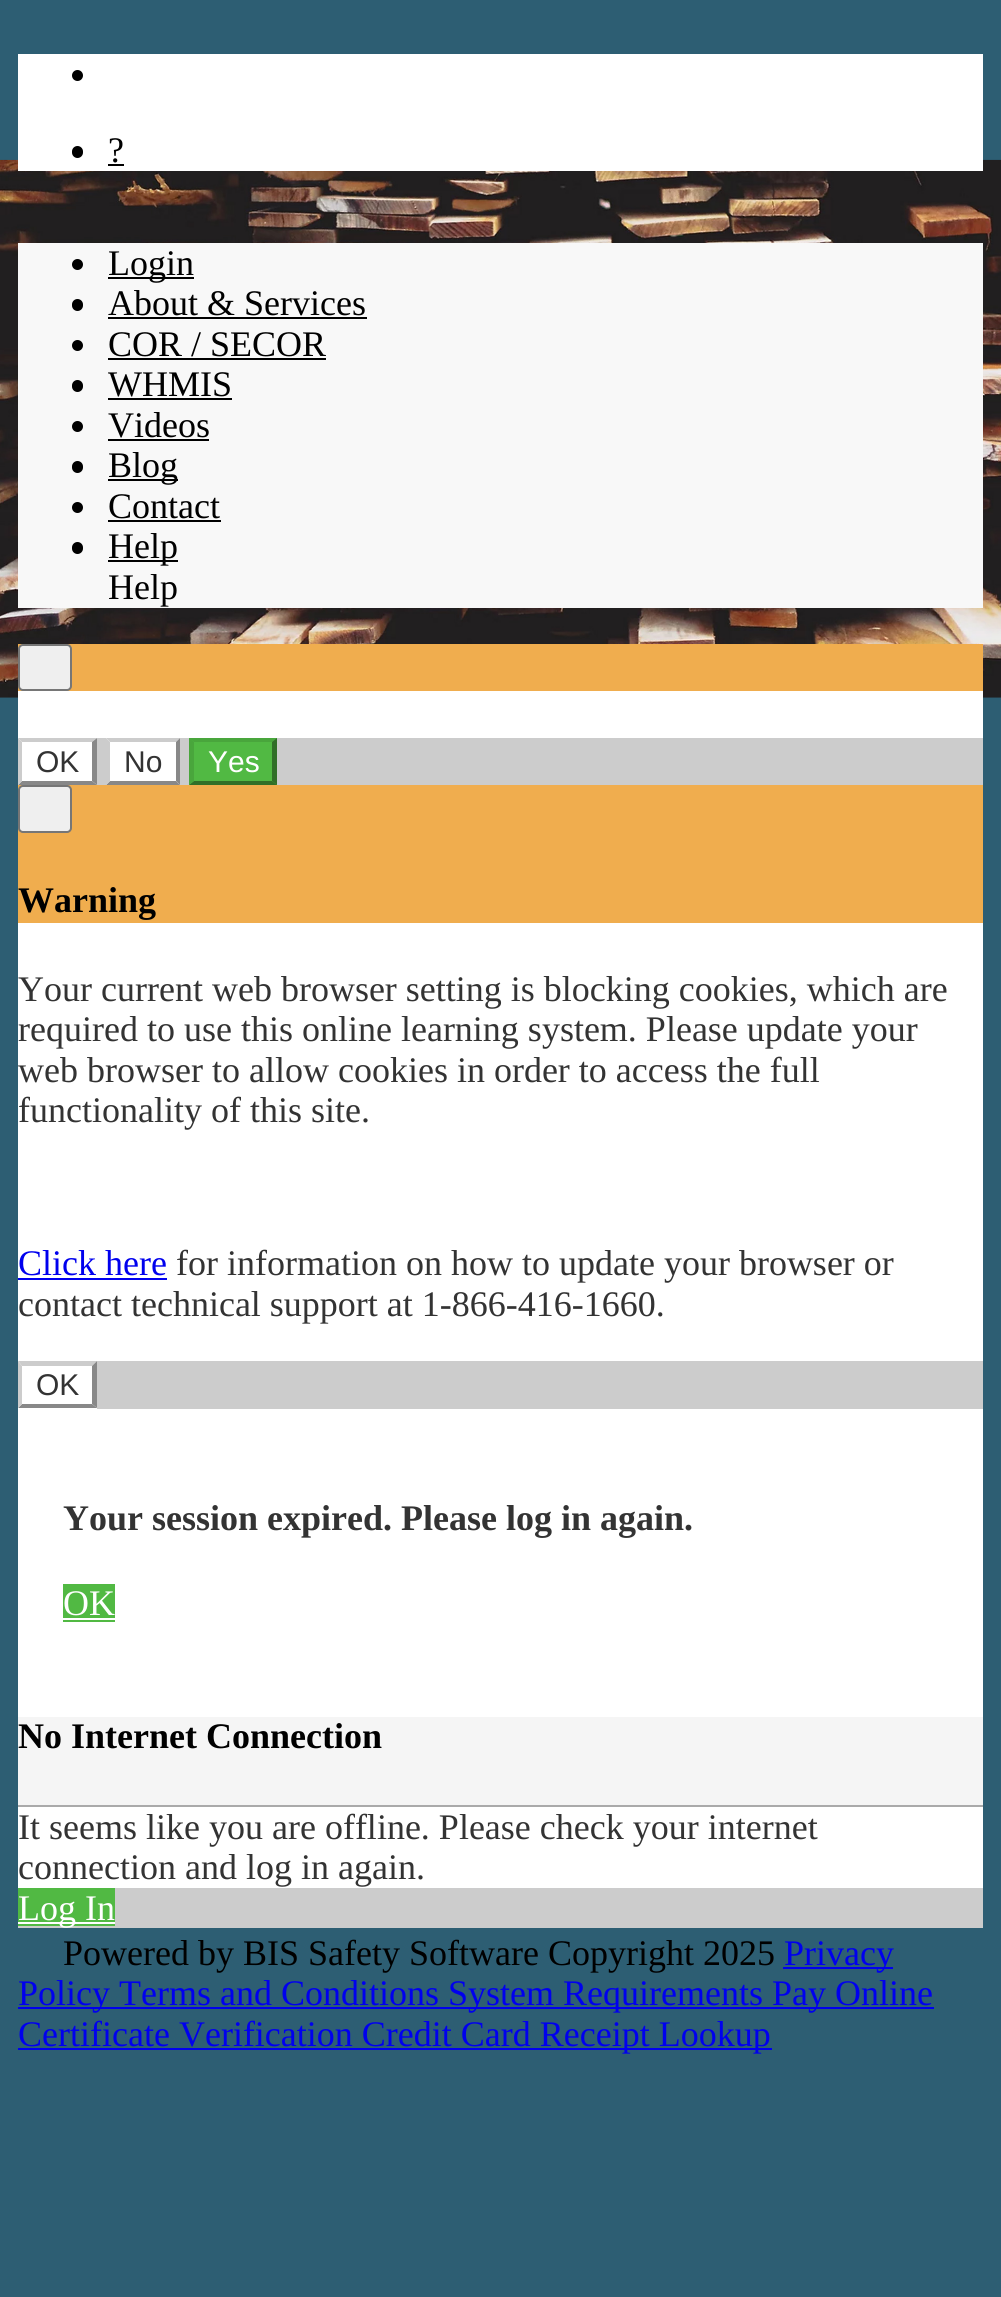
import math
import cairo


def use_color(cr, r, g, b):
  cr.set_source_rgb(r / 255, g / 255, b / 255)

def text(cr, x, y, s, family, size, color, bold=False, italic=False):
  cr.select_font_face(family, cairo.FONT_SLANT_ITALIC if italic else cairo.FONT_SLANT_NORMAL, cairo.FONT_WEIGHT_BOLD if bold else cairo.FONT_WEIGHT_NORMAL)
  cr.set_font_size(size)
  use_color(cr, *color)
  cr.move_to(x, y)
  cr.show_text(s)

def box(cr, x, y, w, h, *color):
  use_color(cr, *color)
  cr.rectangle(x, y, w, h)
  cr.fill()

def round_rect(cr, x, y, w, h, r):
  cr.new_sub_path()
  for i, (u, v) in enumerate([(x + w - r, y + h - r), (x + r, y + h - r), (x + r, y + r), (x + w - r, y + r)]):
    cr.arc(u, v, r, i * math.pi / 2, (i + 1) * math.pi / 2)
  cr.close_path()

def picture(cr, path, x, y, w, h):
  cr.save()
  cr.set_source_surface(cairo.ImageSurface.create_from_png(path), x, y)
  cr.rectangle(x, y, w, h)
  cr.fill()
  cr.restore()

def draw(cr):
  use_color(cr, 45, 94, 115)
  cr.paint()
  picture(cr, "img_01.png", 0, 159, 1001, 539)
  box(cr, 18, 54, 965, 117, 255, 255, 255)
  use_color(cr, 0, 0, 0)
  cr.arc(77.5, 75.5, 5.5, 0, 2 * math.pi)
  cr.fill()
  round_rect(cr, 72, 146, 11, 12, 5.5)
  cr.fill()
  box(cr, 108, 164, 16, 2, 0, 0, 0)
  box(cr, 18, 243, 965, 365, 248, 248, 248)
  use_color(cr, 0, 0, 0)
  cr.arc(77.5, 264.5, 5.5, 0, 2 * math.pi)
  cr.fill()
  box(cr, 108, 277, 86, 2, 0, 0, 0)
  round_rect(cr, 72, 299, 11, 12, 5.5)
  cr.fill()
  box(cr, 108, 317, 259, 2, 0, 0, 0)
  cr.arc(77.5, 345.5, 5.5, 0, 2 * math.pi)
  cr.fill()
  box(cr, 108, 358, 218, 2, 0, 0, 0)
  round_rect(cr, 72, 380, 11, 12, 5.5)
  cr.fill()
  box(cr, 108, 398, 124, 2, 0, 0, 0)
  cr.arc(77.5, 426.5, 5.5, 0, 2 * math.pi)
  cr.fill()
  box(cr, 108, 439, 101, 2, 0, 0, 0)
  round_rect(cr, 72, 461, 11, 12, 5.5)
  cr.fill()
  box(cr, 108, 479, 70, 2, 0, 0, 0)
  cr.arc(77.5, 507.5, 5.5, 0, 2 * math.pi)
  cr.fill()
  box(cr, 108, 520, 113, 2, 0, 0, 0)
  round_rect(cr, 72, 542, 11, 12, 5.5)
  cr.fill()
  box(cr, 108, 560, 70, 2, 0, 0, 0)
  box(cr, 18, 691, 965, 47, 255, 255, 255)
  box(cr, 18, 644, 965, 47, 240, 173, 78)
  use_color(cr, 239, 239, 239)
  round_rect(cr, 19, 645, 52, 45, 4)
  cr.fill_preserve()
  use_color(cr, 118, 118, 118)
  cr.stroke()
  box(cr, 97, 738, 886, 47, 204, 204, 204)
  box(cr, 18, 738, 79, 47, 255, 255, 255)
  use_color(cr, 204, 204, 204)
  cr.new_path()
  cr.move_to(18, 738)
  cr.line_to(97, 738)
  cr.line_to(92, 742)
  cr.line_to(22, 742)
  cr.close_path()
  cr.fill()
  use_color(cr, 136, 136, 136)
  cr.new_path()
  cr.move_to(97, 738)
  cr.line_to(97, 785)
  cr.line_to(92, 781)
  cr.line_to(92, 742)
  cr.close_path()
  cr.fill()
  cr.new_path()
  cr.move_to(97, 785)
  cr.line_to(18, 785)
  cr.line_to(22, 781)
  cr.line_to(92, 781)
  cr.close_path()
  cr.fill()
  use_color(cr, 204, 204, 204)
  cr.new_path()
  cr.move_to(18, 785)
  cr.line_to(18, 738)
  cr.line_to(22, 742)
  cr.line_to(22, 781)
  cr.close_path()
  cr.fill()
  box(cr, 106, 738, 74, 47, 255, 255, 255)
  use_color(cr, 204, 204, 204)
  cr.new_path()
  cr.move_to(106, 738)
  cr.line_to(180, 738)
  cr.line_to(176, 742)
  cr.line_to(110, 742)
  cr.close_path()
  cr.fill()
  use_color(cr, 136, 136, 136)
  cr.new_path()
  cr.move_to(180, 738)
  cr.line_to(180, 785)
  cr.line_to(176, 781)
  cr.line_to(176, 742)
  cr.close_path()
  cr.fill()
  cr.new_path()
  cr.move_to(180, 785)
  cr.line_to(106, 785)
  cr.line_to(110, 781)
  cr.line_to(176, 781)
  cr.close_path()
  cr.fill()
  use_color(cr, 204, 204, 204)
  cr.new_path()
  cr.move_to(106, 785)
  cr.line_to(106, 738)
  cr.line_to(110, 742)
  cr.line_to(110, 781)
  cr.close_path()
  cr.fill()
  box(cr, 189, 738, 88, 47, 81, 185, 67)
  use_color(cr, 73, 166, 60)
  cr.new_path()
  cr.move_to(189, 738)
  cr.line_to(277, 738)
  cr.line_to(272, 742)
  cr.line_to(194, 742)
  cr.close_path()
  cr.fill()
  use_color(cr, 49, 111, 40)
  cr.new_path()
  cr.move_to(277, 738)
  cr.line_to(277, 785)
  cr.line_to(272, 781)
  cr.line_to(272, 742)
  cr.close_path()
  cr.fill()
  cr.new_path()
  cr.move_to(277, 785)
  cr.line_to(189, 785)
  cr.line_to(194, 781)
  cr.line_to(272, 781)
  cr.close_path()
  cr.fill()
  use_color(cr, 73, 166, 60)
  cr.new_path()
  cr.move_to(189, 785)
  cr.line_to(189, 738)
  cr.line_to(194, 742)
  cr.line_to(194, 781)
  cr.close_path()
  cr.fill()
  box(cr, 18, 923, 965, 438, 255, 255, 255)
  box(cr, 18, 785, 965, 138, 240, 173, 78)
  use_color(cr, 239, 239, 239)
  round_rect(cr, 19, 786, 52, 46, 4)
  cr.fill_preserve()
  use_color(cr, 118, 118, 118)
  cr.stroke()
  box(cr, 18, 1278, 149, 2, 0, 0, 238)
  box(cr, 97, 1361, 886, 48, 204, 204, 204)
  box(cr, 18, 1361, 79, 48, 255, 255, 255)
  use_color(cr, 204, 204, 204)
  cr.new_path()
  cr.move_to(18, 1361)
  cr.line_to(97, 1361)
  cr.line_to(92, 1366)
  cr.line_to(22, 1366)
  cr.close_path()
  cr.fill()
  use_color(cr, 136, 136, 136)
  cr.new_path()
  cr.move_to(97, 1361)
  cr.line_to(97, 1408)
  cr.line_to(92, 1404)
  cr.line_to(92, 1366)
  cr.close_path()
  cr.fill()
  cr.new_path()
  cr.move_to(97, 1408)
  cr.line_to(18, 1408)
  cr.line_to(22, 1404)
  cr.line_to(92, 1404)
  cr.close_path()
  cr.fill()
  use_color(cr, 204, 204, 204)
  cr.new_path()
  cr.move_to(18, 1408)
  cr.line_to(18, 1361)
  cr.line_to(22, 1366)
  cr.line_to(22, 1404)
  cr.close_path()
  cr.fill()
  box(cr, 18, 1409, 965, 479, 255, 255, 255)
  box(cr, 63, 1584, 52, 38, 81, 185, 67)
  box(cr, 63, 1618, 52, 2, 255, 255, 255)
  box(cr, 18, 1717, 965, 88, 245, 245, 245)
  box(cr, 18, 1805, 965, 2, 170, 170, 170)
  box(cr, 18, 1888, 965, 40, 204, 204, 204)
  box(cr, 18, 1888, 97, 38, 81, 185, 67)
  box(cr, 18, 1922, 97, 2, 255, 255, 255)
  box(cr, 783, 1967, 110, 2, 0, 0, 238)
  box(cr, 18, 2007, 916, 2, 0, 0, 238)
  box(cr, 18, 2048, 754, 2, 0, 0, 238)
  text(cr, 108, 162, "?", "Liberation Serif", 36, (0, 0, 0))
  text(cr, 108, 275, "Login", "Liberation Serif", 36, (0, 0, 0))
  text(cr, 108, 315, "About & Services", "Liberation Serif", 36, (0, 0, 0))
  text(cr, 108, 356, "COR / SECOR", "Liberation Serif", 36, (0, 0, 0))
  text(cr, 108, 396, "WHMIS", "Liberation Serif", 36, (0, 0, 0))
  text(cr, 108, 437, "Videos", "Liberation Serif", 36, (0, 0, 0))
  text(cr, 108, 477, "Blog", "Liberation Serif", 36, (0, 0, 0))
  text(cr, 108, 518, "Contact", "Liberation Serif", 36, (0, 0, 0))
  text(cr, 108, 558, "Help", "Liberation Serif", 36, (0, 0, 0))
  text(cr, 108, 599, "Help", "Liberation Serif", 36, (0, 0, 0))
  text(cr, 36, 772, "OK", "Liberation Sans", 30, (51, 51, 51))
  text(cr, 124, 772, "No", "Liberation Sans", 30, (51, 51, 51))
  text(cr, 208, 772, "Yes", "Liberation Sans", 30, (255, 255, 255))
  text(cr, 18, 912, "Warning", "Liberation Serif", 36, (0, 0, 0), bold=True)
  text(cr, 18, 1001, "Your current web browser setting is blocking cookies, which are", "Liberation Serif", 36, (51, 51, 51))
  text(cr, 18, 1041, "required to use this online learning system. Please update your", "Liberation Serif", 36, (51, 51, 51))
  text(cr, 18, 1082, "web browser to allow cookies in order to access the full", "Liberation Serif", 36, (51, 51, 51))
  text(cr, 18, 1122, "functionality of this site.", "Liberation Serif", 36, (51, 51, 51))
  text(cr, 18, 1275, "Click here", "Liberation Serif", 36, (0, 0, 238))
  text(cr, 176, 1275, "for information on how to update your browser or", "Liberation Serif", 36, (51, 51, 51))
  text(cr, 18, 1316, "contact technical support at 1-866-416-1660.", "Liberation Serif", 36, (51, 51, 51))
  text(cr, 36, 1395, "OK", "Liberation Sans", 30, (51, 51, 51))
  text(cr, 63, 1530, "Your session expired. Please log in again.", "Liberation Serif", 36, (51, 51, 51), bold=True)
  text(cr, 63, 1615, "OK", "Liberation Serif", 36, (255, 255, 255))
  text(cr, 18, 1748, "No Internet Connection", "Liberation Serif", 36, (0, 0, 0), bold=True)
  text(cr, 18, 1839, "It seems like you are offline. Please check your internet", "Liberation Serif", 36, (51, 51, 51))
  text(cr, 18, 1879, "connection and log in again.", "Liberation Serif", 36, (51, 51, 51))
  text(cr, 18, 1920, "Log In", "Liberation Serif", 36, (255, 255, 255))
  text(cr, 63, 1965, "Powered by BIS Safety Software Copyright 2025", "Liberation Serif", 36, (0, 0, 0))
  text(cr, 784, 1965, "Privacy", "Liberation Serif", 36, (0, 0, 238))
  text(cr, 18, 2005, "Policy Terms and Conditions System Requirements Pay Online", "Liberation Serif", 36, (0, 0, 238))
  text(cr, 18, 2046, "Certificate Verification Credit Card Receipt Lookup", "Liberation Serif", 36, (0, 0, 238))


surface = cairo.ImageSurface(cairo.FORMAT_RGB24, 1001, 2297)
cr = cairo.Context(surface)
options = cairo.FontOptions()
options.set_hint_metrics(cairo.HINT_METRICS_OFF)
options.set_hint_style(cairo.HINT_STYLE_NONE)
cr.set_font_options(options)
cr.set_miter_limit(4)
draw(cr)
surface.write_to_png("out.png")
